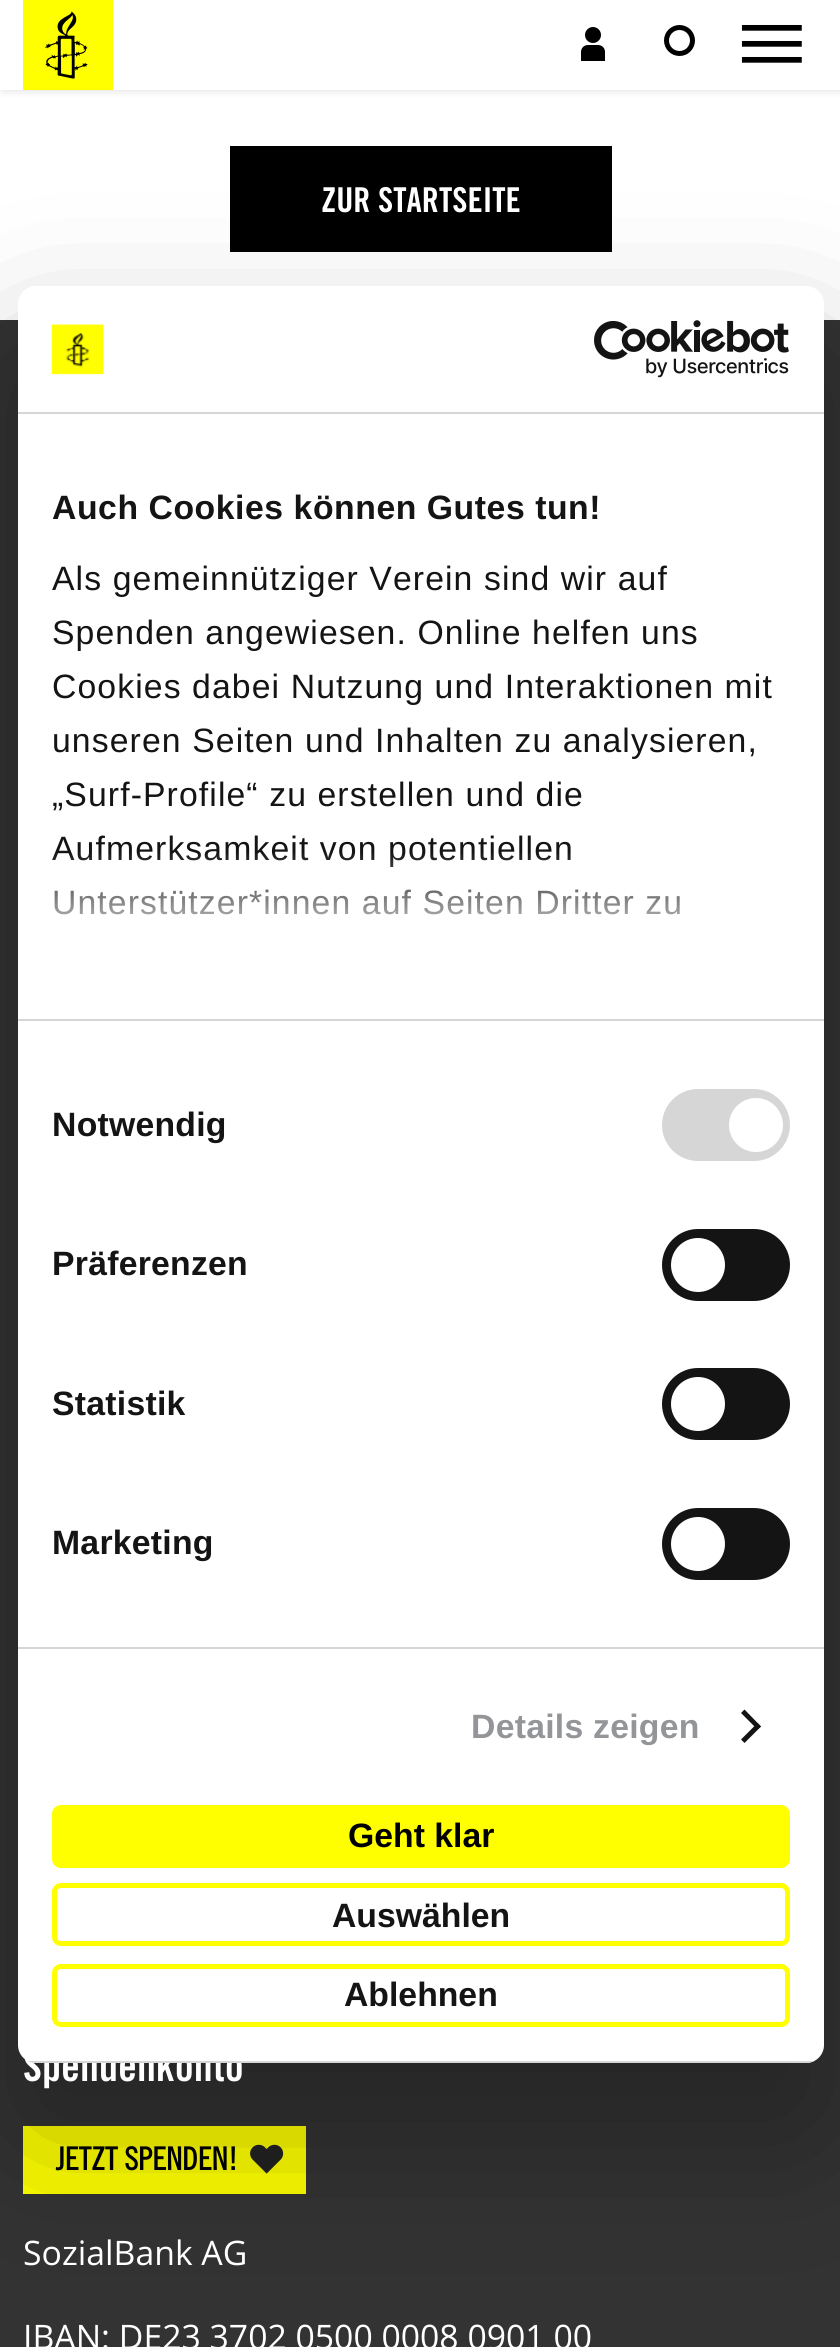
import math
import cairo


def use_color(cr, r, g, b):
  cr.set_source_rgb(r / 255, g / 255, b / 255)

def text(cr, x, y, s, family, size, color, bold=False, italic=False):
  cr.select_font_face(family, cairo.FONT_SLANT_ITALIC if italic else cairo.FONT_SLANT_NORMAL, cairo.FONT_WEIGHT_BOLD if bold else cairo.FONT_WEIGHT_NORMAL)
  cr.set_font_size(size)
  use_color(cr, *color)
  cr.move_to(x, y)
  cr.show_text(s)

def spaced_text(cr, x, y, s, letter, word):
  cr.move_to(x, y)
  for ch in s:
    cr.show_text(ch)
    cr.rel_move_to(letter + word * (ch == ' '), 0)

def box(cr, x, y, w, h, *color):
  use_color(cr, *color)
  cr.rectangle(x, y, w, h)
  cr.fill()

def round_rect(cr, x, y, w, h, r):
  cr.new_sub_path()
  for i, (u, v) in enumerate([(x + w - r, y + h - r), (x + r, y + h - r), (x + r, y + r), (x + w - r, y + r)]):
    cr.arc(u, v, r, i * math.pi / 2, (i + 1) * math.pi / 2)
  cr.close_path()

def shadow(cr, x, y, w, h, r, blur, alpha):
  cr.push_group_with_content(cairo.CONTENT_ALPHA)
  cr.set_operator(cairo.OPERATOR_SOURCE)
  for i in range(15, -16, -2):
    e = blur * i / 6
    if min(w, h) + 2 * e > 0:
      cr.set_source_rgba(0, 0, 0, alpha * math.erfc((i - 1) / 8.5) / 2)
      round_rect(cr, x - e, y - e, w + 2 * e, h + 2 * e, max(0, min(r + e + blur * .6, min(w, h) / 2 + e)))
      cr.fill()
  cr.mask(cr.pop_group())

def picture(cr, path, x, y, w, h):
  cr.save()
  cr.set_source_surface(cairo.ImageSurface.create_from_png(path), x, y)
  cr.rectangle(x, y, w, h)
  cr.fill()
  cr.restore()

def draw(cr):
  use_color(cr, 255, 255, 255)
  cr.paint()
  use_color(cr, 0, 0, 0)
  shadow(cr, 2, 2, 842, 90, 0, 3.5, 0.1)
  box(cr, 0, 0, 840, 90, 255, 255, 255)
  box(cr, 23, 0, 90, 90, 255, 255, 0)
  picture(cr, "img_01.png", 45, 11, 43, 68)
  use_color(cr, 0, 0, 0)
  cr.arc(593, 35, 8, 0, 2 * math.pi)
  cr.fill()
  cr.new_path()
  cr.move_to(588, 45)
  cr.line_to(598, 45)
  cr.curve_to(602, 45, 605, 48, 605, 52)
  cr.line_to(605, 61)
  cr.line_to(581, 61)
  cr.line_to(581, 52)
  cr.curve_to(581, 48, 584, 45, 588, 45)
  cr.close_path()
  cr.fill()
  cr.arc(679.5, 40.5, 13, 0, 2 * math.pi)
  cr.set_line_width(5)
  cr.stroke()
  box(cr, 230, 146, 382, 106, 0, 0, 0)
  box(cr, 0, 320, 840, 2027, 51, 51, 51)
  box(cr, 23, 2126, 283, 68, 255, 255, 0)
  picture(cr, "img_02.png", 250, 2144, 34, 30)
  use_color(cr, 0, 0, 0)
  shadow(cr, 18, 358, 806, 1777, 18, 76.5, 0.3)
  use_color(cr, 255, 255, 255)
  round_rect(cr, 18, 286, 806, 1777, 18)
  cr.fill()
  box(cr, 18, 412, 806, 2, 214, 214, 214)
  picture(cr, "img_03.png", 51, 324, 53, 51)
  picture(cr, "img_04.png", 594, 320, 195, 58)
  box(cr, 18, 1019, 806, 2, 214, 214, 214)
  box(cr, 18, 1647, 806, 2, 214, 214, 214)
  round_rect(cr, 662, 1089, 128, 72, 36)
  cr.fill()
  use_color(cr, 255, 255, 255)
  cr.arc(756, 1125, 27, 0, 2 * math.pi)
  cr.fill()
  use_color(cr, 20, 20, 20)
  round_rect(cr, 662, 1229, 128, 72, 36)
  cr.fill()
  use_color(cr, 255, 255, 255)
  cr.arc(698, 1265, 27, 0, 2 * math.pi)
  cr.fill()
  use_color(cr, 20, 20, 20)
  round_rect(cr, 662, 1368, 128, 72, 36)
  cr.fill()
  use_color(cr, 255, 255, 255)
  cr.arc(698, 1404, 27, 0, 2 * math.pi)
  cr.fill()
  use_color(cr, 20, 20, 20)
  round_rect(cr, 662, 1508, 128, 72, 36)
  cr.fill()
  use_color(cr, 255, 255, 255)
  cr.arc(698, 1544, 27, 0, 2 * math.pi)
  cr.fill()
  use_color(cr, 20, 20, 20)
  cr.new_path()
  cr.move_to(744.5, 1709.5)
  cr.line_to(761, 1726.5)
  cr.line_to(757.5, 1729.5)
  cr.line_to(741, 1713)
  cr.close_path()
  cr.fill()
  cr.new_path()
  cr.move_to(757.5, 1723)
  cr.line_to(761, 1726.5)
  cr.line_to(744.5, 1743)
  cr.line_to(741, 1739.5)
  cr.close_path()
  cr.fill()
  use_color(cr, 255, 255, 0)
  round_rect(cr, 54.5, 1807.5, 733, 58, 6.5)
  cr.fill_preserve()
  cr.stroke()
  round_rect(cr, 54.5, 1885.5, 733, 58, 6.5)
  cr.stroke()
  round_rect(cr, 54.5, 1966.5, 733, 58, 6.5)
  cr.stroke()
  cr.save()
  cr.translate(756, 11)
  cr.rotate(90 * math.pi / 180)
  text(cr, 0, 0, "||", "Open Sans", 58, (0, 0, 0), bold=True)
  cr.restore()
  cr.save()
  cr.translate(756, 27)
  cr.rotate(90 * math.pi / 180)
  text(cr, 0, 0, "|", "Open Sans", 58, (0, 0, 0), bold=True)
  cr.restore()
  text(cr, 321, 212, "ZUR STARTSEITE", "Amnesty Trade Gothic", 34.25, (255, 255, 255), bold=True)
  text(cr, 23, 2081, "Spendenkonto", "Amnesty Trade Gothic", 42.75, (255, 255, 255), bold=True)
  text(cr, 56, 2170, "JETZT SPENDEN!", "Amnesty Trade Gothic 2", 31.5, (0, 0, 0), bold=True)
  text(cr, 23, 2265, "SozialBank AG", "Open Sans", 33.75, (255, 255, 255))
  text(cr, 23, 2349, "IBAN: DE23 3702 0500 0008 0901 00", "Open Sans", 33.75, (255, 255, 255))
  cr.select_font_face("Liberation Sans", cairo.FONT_SLANT_NORMAL, cairo.FONT_WEIGHT_BOLD)
  use_color(cr, 20, 20, 20)
  spaced_text(cr, 52, 519, "Auch Cookies können Gutes tun!", 0.55, 0)
  cr.select_font_face("Liberation Sans")
  spaced_text(cr, 52, 590, "Als gemeinnütziger Verein sind wir auf", 1.1, 0)
  spaced_text(cr, 52, 644, "Spenden angewiesen. Online helfen uns", 1.1, 0)
  spaced_text(cr, 52, 698, "Cookies dabei Nutzung und Interaktionen mit", 1.1, 0)
  spaced_text(cr, 52, 752, "unseren Seiten und Inhalten zu analysieren,", 1.1, 0)
  spaced_text(cr, 52, 806, "„Surf-Profile“ zu erstellen und die", 1.1, 0)
  spaced_text(cr, 52, 860, "Aufmerksamkeit von potentiellen", 1.1, 0)
  spaced_text(cr, 52, 914, "Unterstützer*innen auf Seiten Dritter zu", 1.1, 0)
  gradient = cairo.LinearGradient(406, 1020, 406, 851)
  gradient.add_color_stop_rgba(0, 1, 1, 1, 1)
  gradient.add_color_stop_rgba(0.5, 1, 1, 1, 0.8)
  gradient.add_color_stop_rgba(1, 1, 1, 1, 0)
  cr.set_source(gradient)
  cr.rectangle(52, 853, 629, 62)
  cr.fill()
  cr.select_font_face("Liberation Sans", cairo.FONT_SLANT_NORMAL, cairo.FONT_WEIGHT_BOLD)
  use_color(cr, 20, 20, 20)
  spaced_text(cr, 52, 1136, "Notwendig", 0.25, 0)
  spaced_text(cr, 52, 1275, "Präferenzen", 0.25, 0)
  spaced_text(cr, 52, 1415, "Statistik", 0.25, 0)
  spaced_text(cr, 52, 1554, "Marketing", 0.25, 0)
  use_color(cr, 147, 149, 152)
  spaced_text(cr, 471, 1738, "Details zeigen", 0.25, 0)
  cr.save()
  round_rect(cr, 18, 286, 806, 1777, 18)
  cr.clip()
  box(cr, 28, 2061, 786, 2, 214, 214, 214)
  cr.restore()
  text(cr, 348, 1847, "Geht klar", "Liberation Sans", 33.75, (0, 0, 0), bold=True)
  text(cr, 332, 1927, "Auswählen", "Liberation Sans", 33.75, (20, 20, 20), bold=True)
  text(cr, 344, 2006, "Ablehnen", "Liberation Sans", 33.75, (20, 20, 20), bold=True)


surface = cairo.ImageSurface(cairo.FORMAT_RGB24, 840, 2347)
cr = cairo.Context(surface)
options = cairo.FontOptions()
options.set_hint_metrics(cairo.HINT_METRICS_OFF)
options.set_hint_style(cairo.HINT_STYLE_NONE)
cr.set_font_options(options)
cr.set_miter_limit(4)
draw(cr)
surface.write_to_png("out.png")
